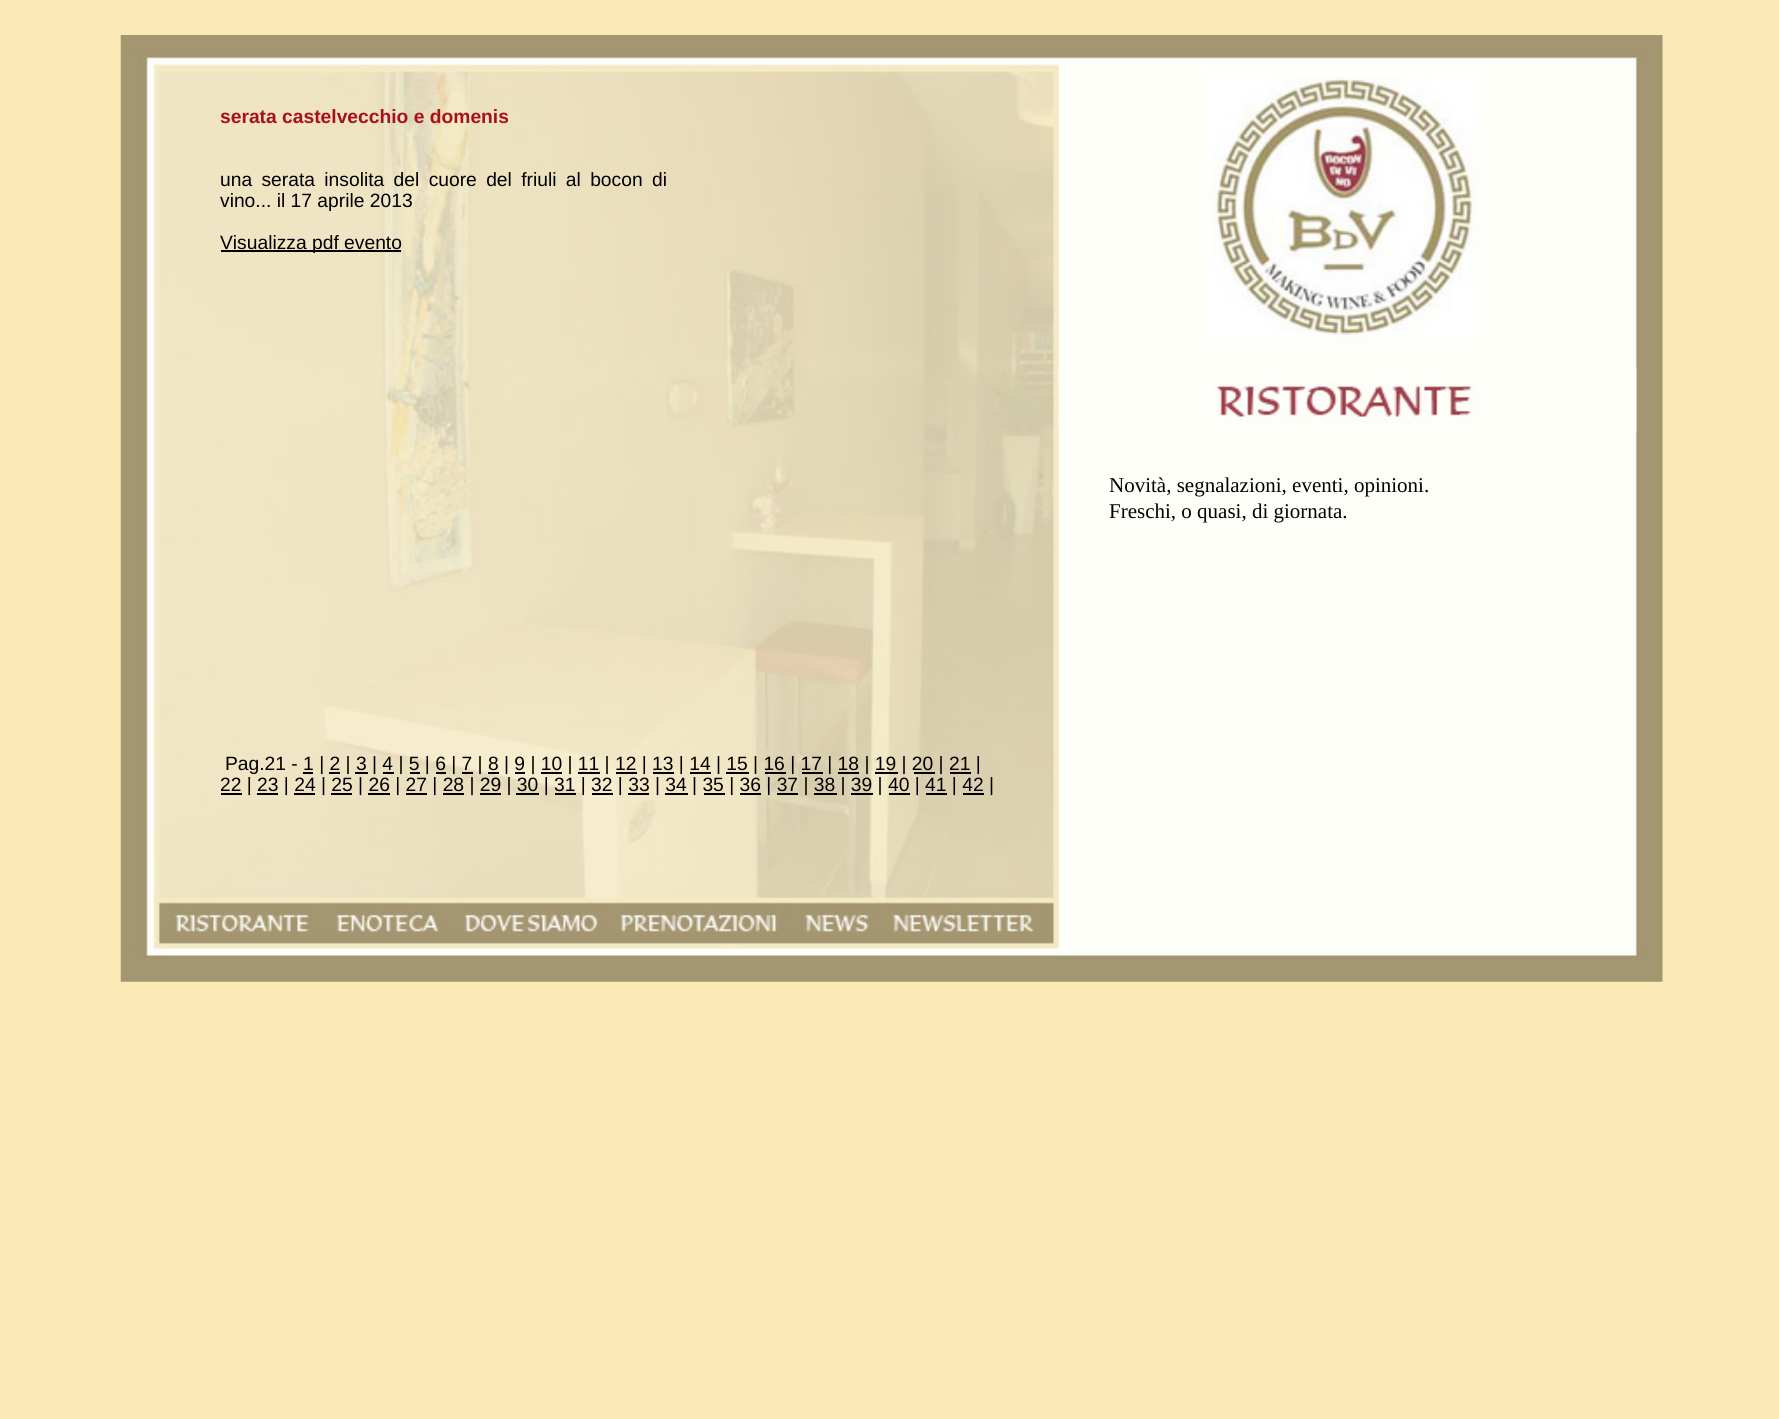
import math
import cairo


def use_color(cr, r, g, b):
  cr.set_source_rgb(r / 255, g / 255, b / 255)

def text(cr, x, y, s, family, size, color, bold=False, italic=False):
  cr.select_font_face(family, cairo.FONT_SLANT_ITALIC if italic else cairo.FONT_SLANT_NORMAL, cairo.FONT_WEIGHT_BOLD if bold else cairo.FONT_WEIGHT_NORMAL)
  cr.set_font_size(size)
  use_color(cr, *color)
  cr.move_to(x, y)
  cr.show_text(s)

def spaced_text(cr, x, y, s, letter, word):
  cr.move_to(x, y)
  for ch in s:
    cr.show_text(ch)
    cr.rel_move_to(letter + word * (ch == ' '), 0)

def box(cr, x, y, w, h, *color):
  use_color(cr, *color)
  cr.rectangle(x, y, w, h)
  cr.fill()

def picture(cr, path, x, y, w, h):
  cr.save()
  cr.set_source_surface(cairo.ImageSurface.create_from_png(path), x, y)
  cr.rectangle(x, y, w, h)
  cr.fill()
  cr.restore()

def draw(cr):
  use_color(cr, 251, 234, 181)
  cr.paint()
  picture(cr, "img_01.png", 120, 35, 1543, 947)
  box(cr, 221, 250, 180, 2, 0, 0, 0)
  picture(cr, "img_02.png", 1058, 367, 579, 66)
  box(cr, 303, 772, 10, 2, 0, 0, 0)
  box(cr, 329, 772, 11, 2, 0, 0, 0)
  box(cr, 355, 772, 13, 2, 0, 0, 0)
  box(cr, 383, 772, 11, 2, 0, 0, 0)
  box(cr, 410, 772, 10, 2, 0, 0, 0)
  box(cr, 436, 772, 10, 2, 0, 0, 0)
  box(cr, 462, 772, 11, 2, 0, 0, 0)
  box(cr, 488, 772, 11, 2, 0, 0, 0)
  box(cr, 515, 772, 10, 2, 0, 0, 0)
  box(cr, 541, 772, 21, 2, 0, 0, 0)
  box(cr, 578, 772, 22, 2, 0, 0, 0)
  box(cr, 616, 772, 21, 2, 0, 0, 0)
  box(cr, 653, 772, 21, 2, 0, 0, 0)
  box(cr, 690, 772, 21, 2, 0, 0, 0)
  box(cr, 726, 772, 23, 2, 0, 0, 0)
  box(cr, 765, 772, 21, 2, 0, 0, 0)
  box(cr, 802, 772, 21, 2, 0, 0, 0)
  box(cr, 838, 772, 21, 2, 0, 0, 0)
  box(cr, 875, 772, 23, 2, 0, 0, 0)
  box(cr, 914, 772, 21, 2, 0, 0, 0)
  box(cr, 950, 772, 21, 2, 0, 0, 0)
  box(cr, 221, 793, 21, 2, 0, 0, 0)
  box(cr, 257, 793, 21, 2, 0, 0, 0)
  box(cr, 294, 793, 21, 2, 0, 0, 0)
  box(cr, 331, 793, 21, 2, 0, 0, 0)
  box(cr, 368, 793, 22, 2, 0, 0, 0)
  box(cr, 406, 793, 21, 2, 0, 0, 0)
  box(cr, 443, 793, 21, 2, 0, 0, 0)
  box(cr, 480, 793, 21, 2, 0, 0, 0)
  box(cr, 516, 793, 23, 2, 0, 0, 0)
  box(cr, 555, 793, 21, 2, 0, 0, 0)
  box(cr, 592, 793, 21, 2, 0, 0, 0)
  box(cr, 628, 793, 21, 2, 0, 0, 0)
  box(cr, 665, 793, 23, 2, 0, 0, 0)
  box(cr, 704, 793, 21, 2, 0, 0, 0)
  box(cr, 740, 793, 21, 2, 0, 0, 0)
  box(cr, 777, 793, 21, 2, 0, 0, 0)
  box(cr, 814, 793, 23, 2, 0, 0, 0)
  box(cr, 851, 793, 22, 2, 0, 0, 0)
  box(cr, 889, 793, 21, 2, 0, 0, 0)
  box(cr, 926, 793, 21, 2, 0, 0, 0)
  box(cr, 963, 793, 21, 2, 0, 0, 0)
  picture(cr, "img_03.png", 168, 906, 141, 29)
  picture(cr, "img_04.png", 336, 906, 110, 29)
  picture(cr, "img_05.png", 465, 906, 140, 29)
  picture(cr, "img_06.png", 620, 906, 167, 29)
  picture(cr, "img_07.png", 804, 907, 71, 28)
  picture(cr, "img_08.png", 892, 906, 142, 29)
  text(cr, 220, 123, "serata castelvecchio e domenis", "Liberation Sans", 19.25, (168, 16, 27), bold=True)
  cr.select_font_face("Liberation Sans")
  use_color(cr, 0, 0, 0)
  spaced_text(cr, 220, 186, "una serata insolita del cuore del friuli al bocon di", 0, 4)
  text(cr, 220, 207, "vino... il 17 aprile 2013", "Liberation Sans", 19.25, (0, 0, 0))
  text(cr, 220, 249, "Visualizza pdf evento", "Liberation Sans", 19.25, (0, 0, 0))
  text(cr, 1109, 492, "Novità, segnalazioni, eventi, opinioni.", "Liberation Serif", 21, (0, 0, 0))
  text(cr, 1109, 518, "Freschi, o quasi, di giornata.", "Liberation Serif", 21, (0, 0, 0))
  text(cr, 225, 770, "Pag.21 - 1 | 2 | 3 | 4 | 5 | 6 | 7 | 8 | 9 | 10 | 11 | 12 | 13 | 14 | 15 | 16 | 17 | 18 | 19 | 20 | 21 |", "Liberation Sans", 19.25, (0, 0, 0))
  text(cr, 220, 791, "22 | 23 | 24 | 25 | 26 | 27 | 28 | 29 | 30 | 31 | 32 | 33 | 34 | 35 | 36 | 37 | 38 | 39 | 40 | 41 | 42 |", "Liberation Sans", 19.25, (0, 0, 0))


surface = cairo.ImageSurface(cairo.FORMAT_RGB24, 1779, 1419)
cr = cairo.Context(surface)
options = cairo.FontOptions()
options.set_hint_metrics(cairo.HINT_METRICS_OFF)
options.set_hint_style(cairo.HINT_STYLE_NONE)
cr.set_font_options(options)
cr.set_miter_limit(4)
draw(cr)
surface.write_to_png("out.png")
